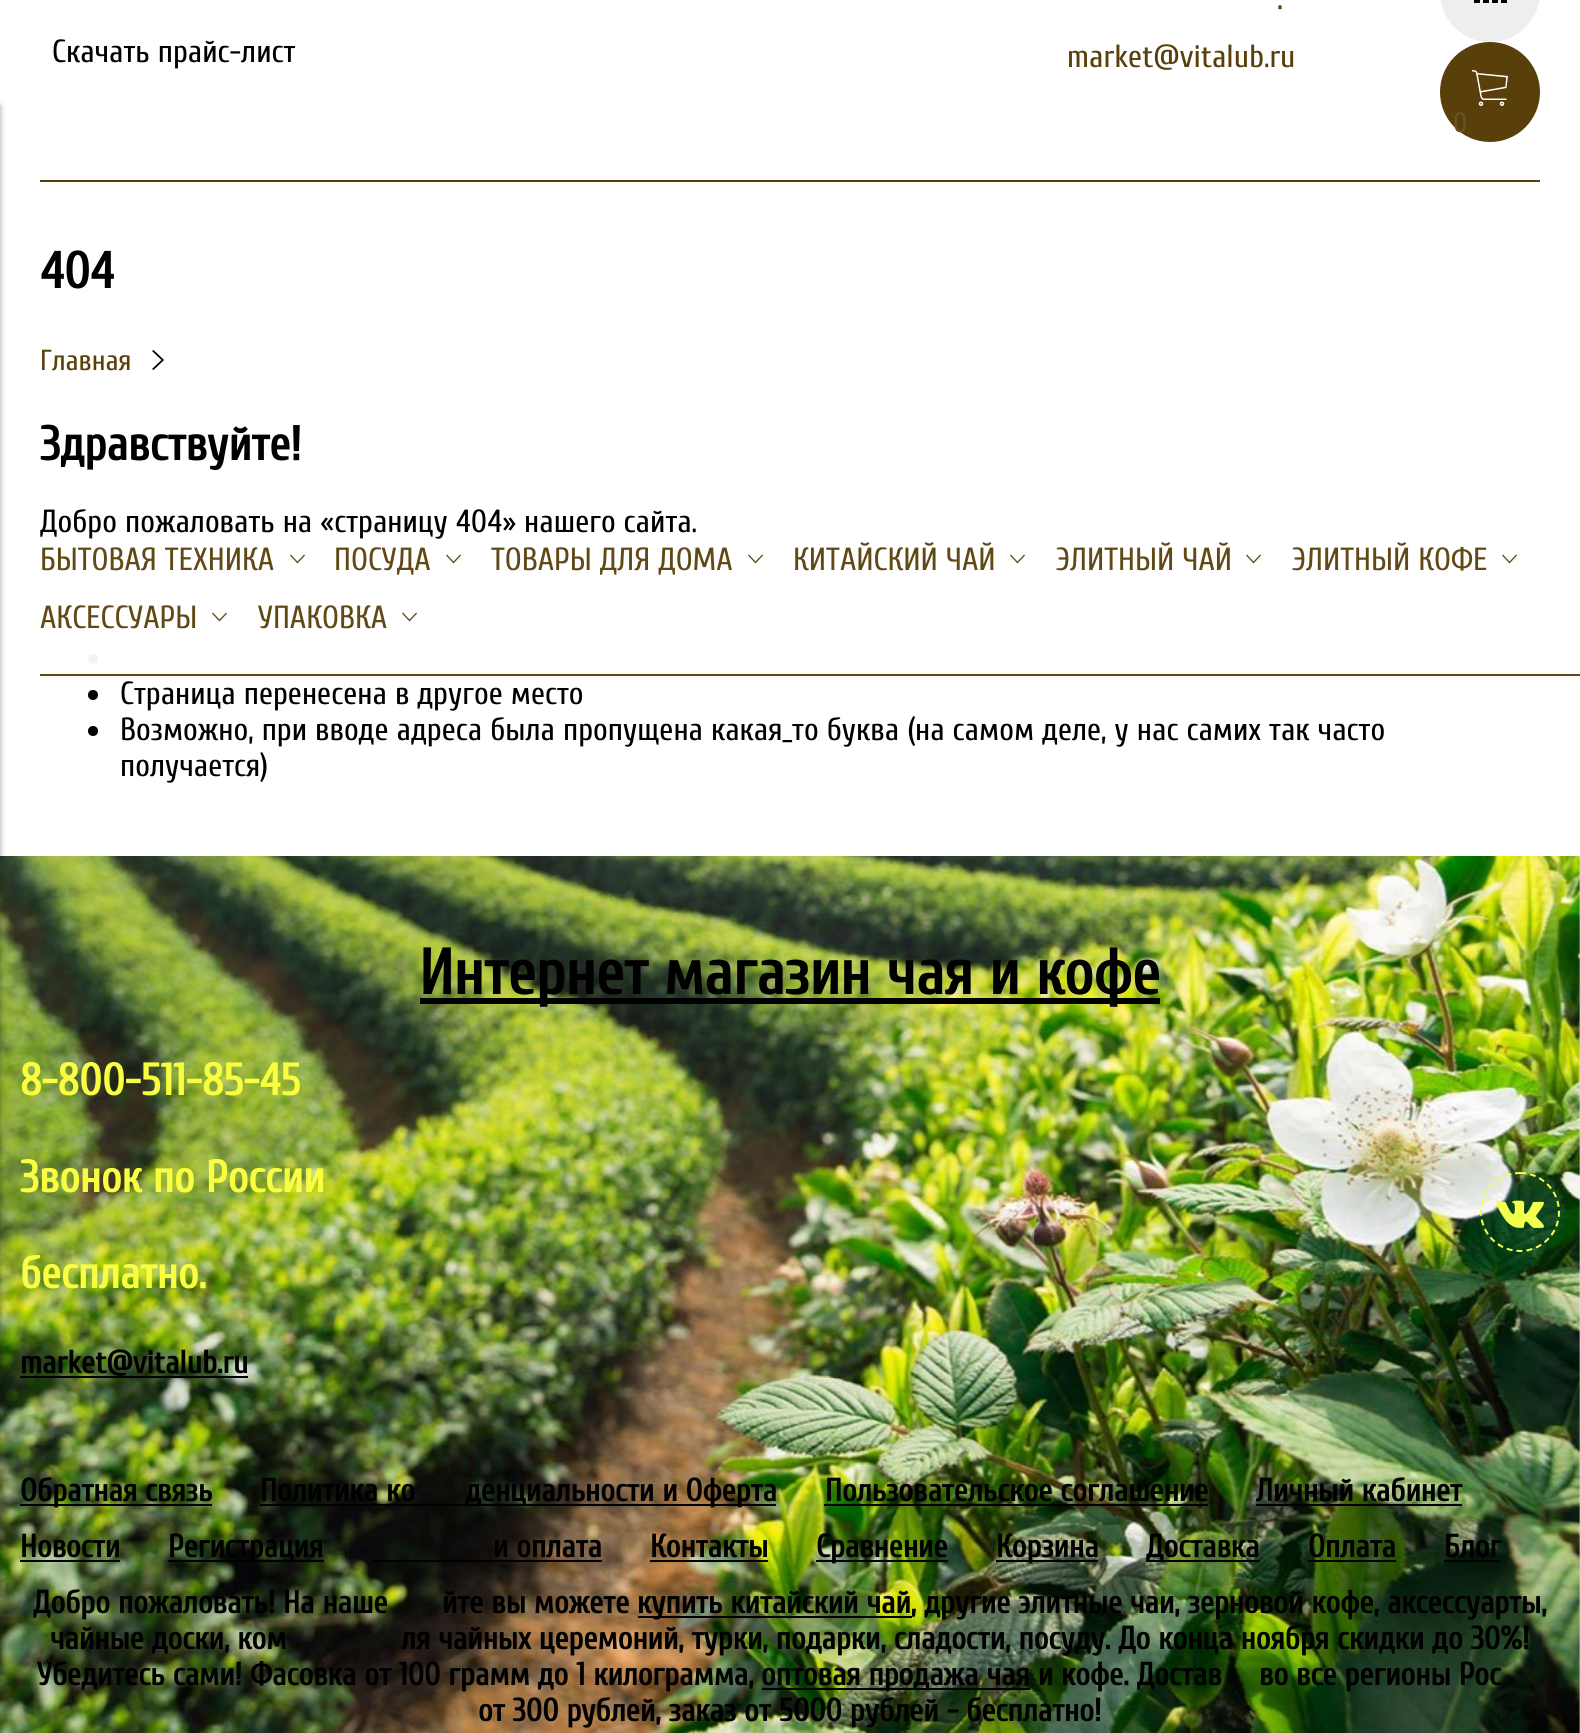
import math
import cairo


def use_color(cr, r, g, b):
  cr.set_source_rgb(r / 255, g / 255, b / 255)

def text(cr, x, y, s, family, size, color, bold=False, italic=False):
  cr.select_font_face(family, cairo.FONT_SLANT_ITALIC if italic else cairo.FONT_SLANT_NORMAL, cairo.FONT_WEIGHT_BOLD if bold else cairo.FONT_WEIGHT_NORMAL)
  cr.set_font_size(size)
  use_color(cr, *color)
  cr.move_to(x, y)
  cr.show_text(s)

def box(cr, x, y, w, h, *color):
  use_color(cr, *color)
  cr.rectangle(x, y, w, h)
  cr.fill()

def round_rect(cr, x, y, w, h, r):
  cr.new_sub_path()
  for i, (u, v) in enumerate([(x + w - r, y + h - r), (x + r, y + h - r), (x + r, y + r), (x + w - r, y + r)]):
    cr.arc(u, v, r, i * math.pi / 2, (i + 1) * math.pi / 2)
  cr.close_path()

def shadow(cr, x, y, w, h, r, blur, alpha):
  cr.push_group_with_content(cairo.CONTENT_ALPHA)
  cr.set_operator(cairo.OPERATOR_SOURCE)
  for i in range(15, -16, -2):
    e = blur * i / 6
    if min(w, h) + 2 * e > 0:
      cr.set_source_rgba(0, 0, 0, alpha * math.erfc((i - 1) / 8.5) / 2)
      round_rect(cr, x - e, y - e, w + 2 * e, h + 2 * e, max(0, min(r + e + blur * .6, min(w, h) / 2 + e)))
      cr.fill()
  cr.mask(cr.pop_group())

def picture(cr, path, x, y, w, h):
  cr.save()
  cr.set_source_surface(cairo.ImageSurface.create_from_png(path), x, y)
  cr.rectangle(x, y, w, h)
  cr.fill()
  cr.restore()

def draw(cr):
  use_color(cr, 255, 255, 255)
  cr.paint()
  picture(cr, "img_04.png", 0, 856, 1580, 877)
  use_color(cr, 0, 0, 0)
  shadow(cr, -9, 106, 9, 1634, 0, 3, 0.4)
  use_color(cr, 238, 238, 238)
  round_rect(cr, 1440, -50, 100, 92, 50)
  cr.fill()
  picture(cr, "img_01.png", 1474, 0, 33, 3)
  use_color(cr, 89, 63, 10)
  cr.arc(1490, 92, 50, 0, 2 * math.pi)
  cr.fill()
  picture(cr, "img_02.png", 1472, 70, 36, 36)
  box(cr, 40, 180, 1500, 2, 89, 63, 10)
  use_color(cr, 0, 0, 0)
  cr.new_path()
  cr.move_to(152, 351)
  cr.line_to(153.5, 350)
  cr.line_to(164, 360)
  cr.line_to(153.5, 370)
  cr.line_to(152, 369)
  cr.line_to(161.5, 360)
  cr.close_path()
  cr.fill()
  cr.arc(93, 659, 5, 0, 2 * math.pi)
  cr.fill()
  cr.arc(93, 695, 5, 0, 2 * math.pi)
  cr.fill()
  cr.arc(93, 731, 5, 0, 2 * math.pi)
  cr.fill()
  cr.set_source_rgba(1, 1, 1, 0.95)
  cr.rectangle(88, 654, 10, 10)
  cr.fill()
  picture(cr, "img_03.png", 290, 554, 15, 10)
  picture(cr, "img_03.png", 446, 554, 15, 10)
  picture(cr, "img_03.png", 748, 554, 15, 10)
  picture(cr, "img_03.png", 1010, 554, 15, 10)
  picture(cr, "img_03.png", 1246, 554, 15, 10)
  picture(cr, "img_03.png", 1502, 554, 15, 10)
  picture(cr, "img_03.png", 212, 612, 15, 10)
  picture(cr, "img_03.png", 402, 612, 15, 10)
  cr.set_source_rgba(0.349, 0.247, 0.039, 0.95)
  cr.rectangle(40, 674, 1540, 2)
  cr.fill()
  box(cr, 420, 998, 740, 6, 0, 0, 0)
  box(cr, 20, 1376, 228, 2, 0, 0, 0)
  cr.new_path()
  cr.move_to(1520, 1173)
  cr.curve_to(1541.5, 1173, 1559, 1190.5, 1559, 1212)
  cr.curve_to(1559, 1233.5, 1541.5, 1251, 1520, 1251)
  cr.curve_to(1498.5, 1251, 1481, 1233.5, 1481, 1212)
  cr.curve_to(1481, 1190.5, 1498.5, 1173, 1520, 1173)
  cr.close_path()
  use_color(cr, 243, 255, 79)
  cr.set_dash([6, 4])
  cr.stroke()
  picture(cr, "img_05.png", 1496, 1200, 48, 28)
  box(cr, 20, 1504, 192, 2, 0, 0, 0)
  box(cr, 260, 1504, 516, 2, 0, 0, 0)
  box(cr, 824, 1504, 384, 2, 0, 0, 0)
  box(cr, 1256, 1504, 206, 2, 0, 0, 0)
  box(cr, 20, 1560, 100, 2, 0, 0, 0)
  box(cr, 168, 1560, 156, 2, 0, 0, 0)
  box(cr, 372, 1560, 230, 2, 0, 0, 0)
  box(cr, 650, 1560, 118, 2, 0, 0, 0)
  box(cr, 816, 1560, 132, 2, 0, 0, 0)
  box(cr, 996, 1560, 102, 2, 0, 0, 0)
  box(cr, 1146, 1560, 114, 2, 0, 0, 0)
  box(cr, 1308, 1560, 88, 2, 0, 0, 0)
  box(cr, 1444, 1560, 56, 2, 0, 0, 0)
  box(cr, 638, 1616, 274, 2, 0, 0, 0)
  box(cr, 762, 1688, 268, 2, 0, 0, 0)
  text(cr, 52, 62, "Скачать прайс-лист", "Cuprum", 32, (0, 0, 0))
  text(cr, 1277, 9, ".", "Cuprum", 35, (89, 63, 10))
  text(cr, 1067, 67, "market@vitalub.ru", "Cuprum", 32, (89, 63, 10))
  text(cr, 1453, 132, "0", "Cuprum", 28, (105, 82, 34))
  text(cr, 40, 288, "404", "Cuprum", 51, (0, 0, 0), bold=True)
  text(cr, 40, 370, "Главная", "Cuprum", 29, (89, 63, 10))
  text(cr, 40, 460, "Здравствуйте!", "Cuprum", 48, (0, 0, 0), bold=True)
  text(cr, 40, 532, "Добро пожаловать на «страницу 404» нашего сайта.", "Cuprum", 32, (0, 0, 0))
  text(cr, 120, 704, "Страница перенесена в другое место", "Cuprum", 32, (0, 0, 0))
  text(cr, 120, 740, "Возможно, при вводе адреса была пропущена какая_то буква (на самом деле, у нас самих так часто", "Cuprum", 32, (0, 0, 0))
  text(cr, 120, 776, "получается)", "Cuprum", 32, (0, 0, 0))
  text(cr, 40, 570, "БЫТОВАЯ ТЕХНИКА", "Cuprum", 32, (97, 73, 22))
  text(cr, 334, 570, "ПОСУДА", "Cuprum", 32, (97, 73, 22))
  text(cr, 491, 570, "ТОВАРЫ ДЛЯ ДОМА", "Cuprum", 32, (97, 73, 22))
  text(cr, 793, 570, "КИТАЙСКИЙ ЧАЙ", "Cuprum", 32, (97, 73, 22))
  text(cr, 1056, 570, "ЭЛИТНЫЙ ЧАЙ", "Cuprum", 32, (97, 73, 22))
  text(cr, 1292, 570, "ЭЛИТНЫЙ КОФЕ", "Cuprum", 32, (97, 73, 22))
  text(cr, 40, 628, "АКСЕССУАРЫ", "Cuprum", 32, (97, 73, 22))
  text(cr, 258, 628, "УПАКОВКА", "Cuprum", 32, (97, 73, 22))
  text(cr, 419, 994, "Интернет магазин чая и кофе", "Cuprum", 64, (0, 0, 0), bold=True)
  text(cr, 20, 1095, "8-800-511-85-45", "Cuprum", 44.75, (249, 255, 64), bold=True)
  text(cr, 20, 1192, "Звонок по России", "Cuprum", 44.75, (249, 255, 64), bold=True)
  text(cr, 20, 1288, "бесплатно.", "Cuprum", 44.75, (249, 255, 64), bold=True)
  text(cr, 20, 1373, "market@vitalub.ru", "Cuprum", 32, (0, 0, 0), bold=True)
  text(cr, 20, 1501, "Обратная связь", "Cuprum", 32, (0, 0, 0), bold=True)
  text(cr, 260, 1501, "Политика ко", "Cuprum", 32, (0, 0, 0), bold=True)
  text(cr, 465, 1501, "денциальности и Оферта", "Cuprum", 32, (0, 0, 0), bold=True)
  text(cr, 825, 1501, "Пользовательское соглашение", "Cuprum", 32, (0, 0, 0), bold=True)
  text(cr, 1256, 1501, "Личный кабинет", "Cuprum", 32, (0, 0, 0), bold=True)
  text(cr, 20, 1557, "Новости", "Cuprum", 32, (0, 0, 0), bold=True)
  text(cr, 168, 1557, "Регистрация", "Cuprum", 32, (0, 0, 0), bold=True)
  text(cr, 493, 1557, "и оплата", "Cuprum", 32, (0, 0, 0), bold=True)
  text(cr, 650, 1557, "Контакты", "Cuprum", 32, (0, 0, 0), bold=True)
  text(cr, 816, 1557, "Сравнение", "Cuprum", 32, (0, 0, 0), bold=True)
  text(cr, 996, 1557, "Корзина", "Cuprum", 32, (0, 0, 0), bold=True)
  text(cr, 1146, 1557, "Доставка", "Cuprum", 32, (0, 0, 0), bold=True)
  text(cr, 1308, 1557, "Оплата", "Cuprum", 32, (0, 0, 0), bold=True)
  text(cr, 1444, 1557, "Блог", "Cuprum", 32, (0, 0, 0), bold=True)
  text(cr, 33, 1613, "Добро пожаловать! На наше", "Cuprum", 32, (0, 0, 0), bold=True)
  text(cr, 442, 1613, "йте вы можете", "Cuprum", 32, (0, 0, 0), bold=True)
  text(cr, 637, 1613, "купить китайский чай, другие элитные чаи, зерновой кофе, аксессуарты,", "Cuprum", 32, (0, 0, 0), bold=True)
  text(cr, 50, 1649, "чайные доски, ком", "Cuprum", 32, (0, 0, 0), bold=True)
  text(cr, 401, 1649, "ля чайных церемоний, турки, подарки, сладости, посуду. До конца ноября скидки до 30%!", "Cuprum", 32, (0, 0, 0), bold=True)
  text(cr, 37, 1685, "Убедитесь сами! Фасовка от 100 грамм до 1 килограмма,", "Cuprum", 32, (0, 0, 0), bold=True)
  text(cr, 761, 1685, "оптовая продажа чая и кофе. Достав", "Cuprum", 32, (0, 0, 0), bold=True)
  text(cr, 1259, 1685, "во все регионы Рос", "Cuprum", 32, (0, 0, 0), bold=True)
  text(cr, 478, 1721, "от 300 рублей, заказ от 5000 рублей - бесплатно!", "Cuprum", 32, (0, 0, 0), bold=True)


surface = cairo.ImageSurface(cairo.FORMAT_RGB24, 1580, 1733)
cr = cairo.Context(surface)
options = cairo.FontOptions()
options.set_hint_metrics(cairo.HINT_METRICS_OFF)
options.set_hint_style(cairo.HINT_STYLE_NONE)
cr.set_font_options(options)
cr.set_miter_limit(4)
draw(cr)
surface.write_to_png("out.png")
